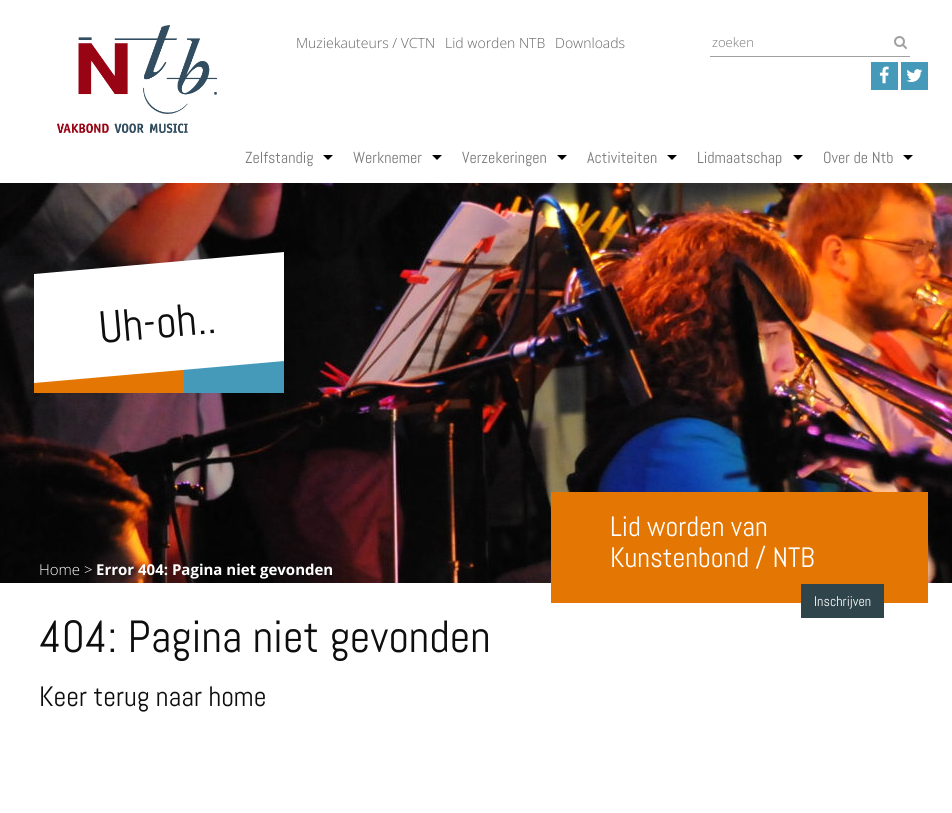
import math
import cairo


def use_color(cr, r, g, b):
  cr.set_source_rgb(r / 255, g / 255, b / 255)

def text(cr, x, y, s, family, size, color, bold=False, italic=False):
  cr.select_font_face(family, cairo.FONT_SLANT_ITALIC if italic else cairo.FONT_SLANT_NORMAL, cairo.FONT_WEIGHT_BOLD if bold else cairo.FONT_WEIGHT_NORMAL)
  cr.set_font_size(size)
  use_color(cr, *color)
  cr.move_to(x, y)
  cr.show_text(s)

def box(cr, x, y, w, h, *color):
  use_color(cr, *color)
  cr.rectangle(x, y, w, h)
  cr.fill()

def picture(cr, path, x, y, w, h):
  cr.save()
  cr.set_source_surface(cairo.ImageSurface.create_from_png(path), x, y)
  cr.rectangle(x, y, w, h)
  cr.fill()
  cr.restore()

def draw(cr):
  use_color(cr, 255, 255, 255)
  cr.paint()
  picture(cr, "img_01.png", 57, 25, 160, 108)
  box(cr, 710, 56, 200, 1, 161, 161, 161)
  picture(cr, "img_02.png", 894, 36, 13, 13)
  box(cr, 871, 62, 27, 28, 69, 154, 186)
  picture(cr, "img_03.png", 879, 66, 10, 18)
  box(cr, 901, 62, 27, 28, 69, 154, 186)
  picture(cr, "img_04.png", 906, 69, 17, 13)
  use_color(cr, 0, 0, 0)
  cr.new_path()
  cr.move_to(323, 155)
  cr.line_to(333, 155)
  cr.line_to(328, 160)
  cr.close_path()
  cr.fill()
  cr.new_path()
  cr.move_to(432, 155)
  cr.line_to(442, 155)
  cr.line_to(437, 160)
  cr.close_path()
  cr.fill()
  cr.new_path()
  cr.move_to(557, 155)
  cr.line_to(567, 155)
  cr.line_to(562, 160)
  cr.close_path()
  cr.fill()
  cr.new_path()
  cr.move_to(667, 155)
  cr.line_to(677, 155)
  cr.line_to(672, 160)
  cr.close_path()
  cr.fill()
  cr.new_path()
  cr.move_to(793, 155)
  cr.line_to(803, 155)
  cr.line_to(798, 160)
  cr.close_path()
  cr.fill()
  cr.new_path()
  cr.move_to(903, 155)
  cr.line_to(913, 155)
  cr.line_to(908, 160)
  cr.close_path()
  cr.fill()
  picture(cr, "img_05.png", 0, 183, 952, 400)
  box(cr, 34, 369, 150, 24, 228, 119, 3)
  box(cr, 184, 361, 100, 32, 69, 154, 186)
  use_color(cr, 255, 255, 255)
  cr.new_path()
  cr.move_to(34, 274)
  cr.line_to(284, 252)
  cr.line_to(284, 361)
  cr.line_to(34, 383)
  cr.close_path()
  cr.fill()
  box(cr, 551, 492, 377, 111, 228, 119, 3)
  box(cr, 801, 584, 83, 34, 47, 68, 75)
  text(cr, 296, 48, "Muziekauteurs / VCTN", "Open Sans Light", 14, (101, 101, 101))
  text(cr, 445, 48, "Lid worden NTB", "Open Sans Light", 14, (101, 101, 101))
  text(cr, 555, 48, "Downloads", "Open Sans Light", 14, (101, 101, 101))
  text(cr, 712, 47, "zoeken", "Open Sans Light", 13, (119, 119, 119))
  text(cr, 245, 163, "Zelfstandig", "Abel", 16, (119, 119, 119))
  text(cr, 353, 163, "Werknemer", "Abel", 16, (119, 119, 119))
  text(cr, 462, 163, "Verzekeringen", "Abel", 16, (119, 119, 119))
  text(cr, 587, 163, "Activiteiten", "Abel", 16, (119, 119, 119))
  text(cr, 697, 163, "Lidmaatschap", "Abel", 16, (119, 119, 119))
  text(cr, 823, 163, "Over de Ntb", "Abel", 16, (119, 119, 119))
  cr.save()
  cr.translate(100, 343)
  cr.rotate(-5 * math.pi / 180)
  text(cr, 0, 0, "Uh-oh..", "Abel", 45, (14, 14, 14))
  cr.restore()
  text(cr, 39, 575, "Home >", "Open Sans Light", 15, (255, 255, 255))
  text(cr, 96, 575, "Error 404: Pagina niet gevonden", "Open Sans", 15, (255, 255, 255), bold=True)
  text(cr, 610, 536, "Lid worden van", "Abel", 28, (255, 255, 255))
  text(cr, 610, 567, "Kunstenbond / NTB", "Abel", 28, (255, 255, 255))
  text(cr, 814, 606, "Inschrijven", "Abel", 14, (255, 255, 255))
  text(cr, 39, 652, "404: Pagina niet gevonden", "Abel", 45, (14, 14, 14))
  text(cr, 39, 706, "Keer terug naar home", "Abel", 28, (14, 14, 14))


surface = cairo.ImageSurface(cairo.FORMAT_RGB24, 952, 813)
cr = cairo.Context(surface)
options = cairo.FontOptions()
options.set_hint_metrics(cairo.HINT_METRICS_OFF)
options.set_hint_style(cairo.HINT_STYLE_NONE)
cr.set_font_options(options)
cr.set_miter_limit(4)
draw(cr)
surface.write_to_png("out.png")
